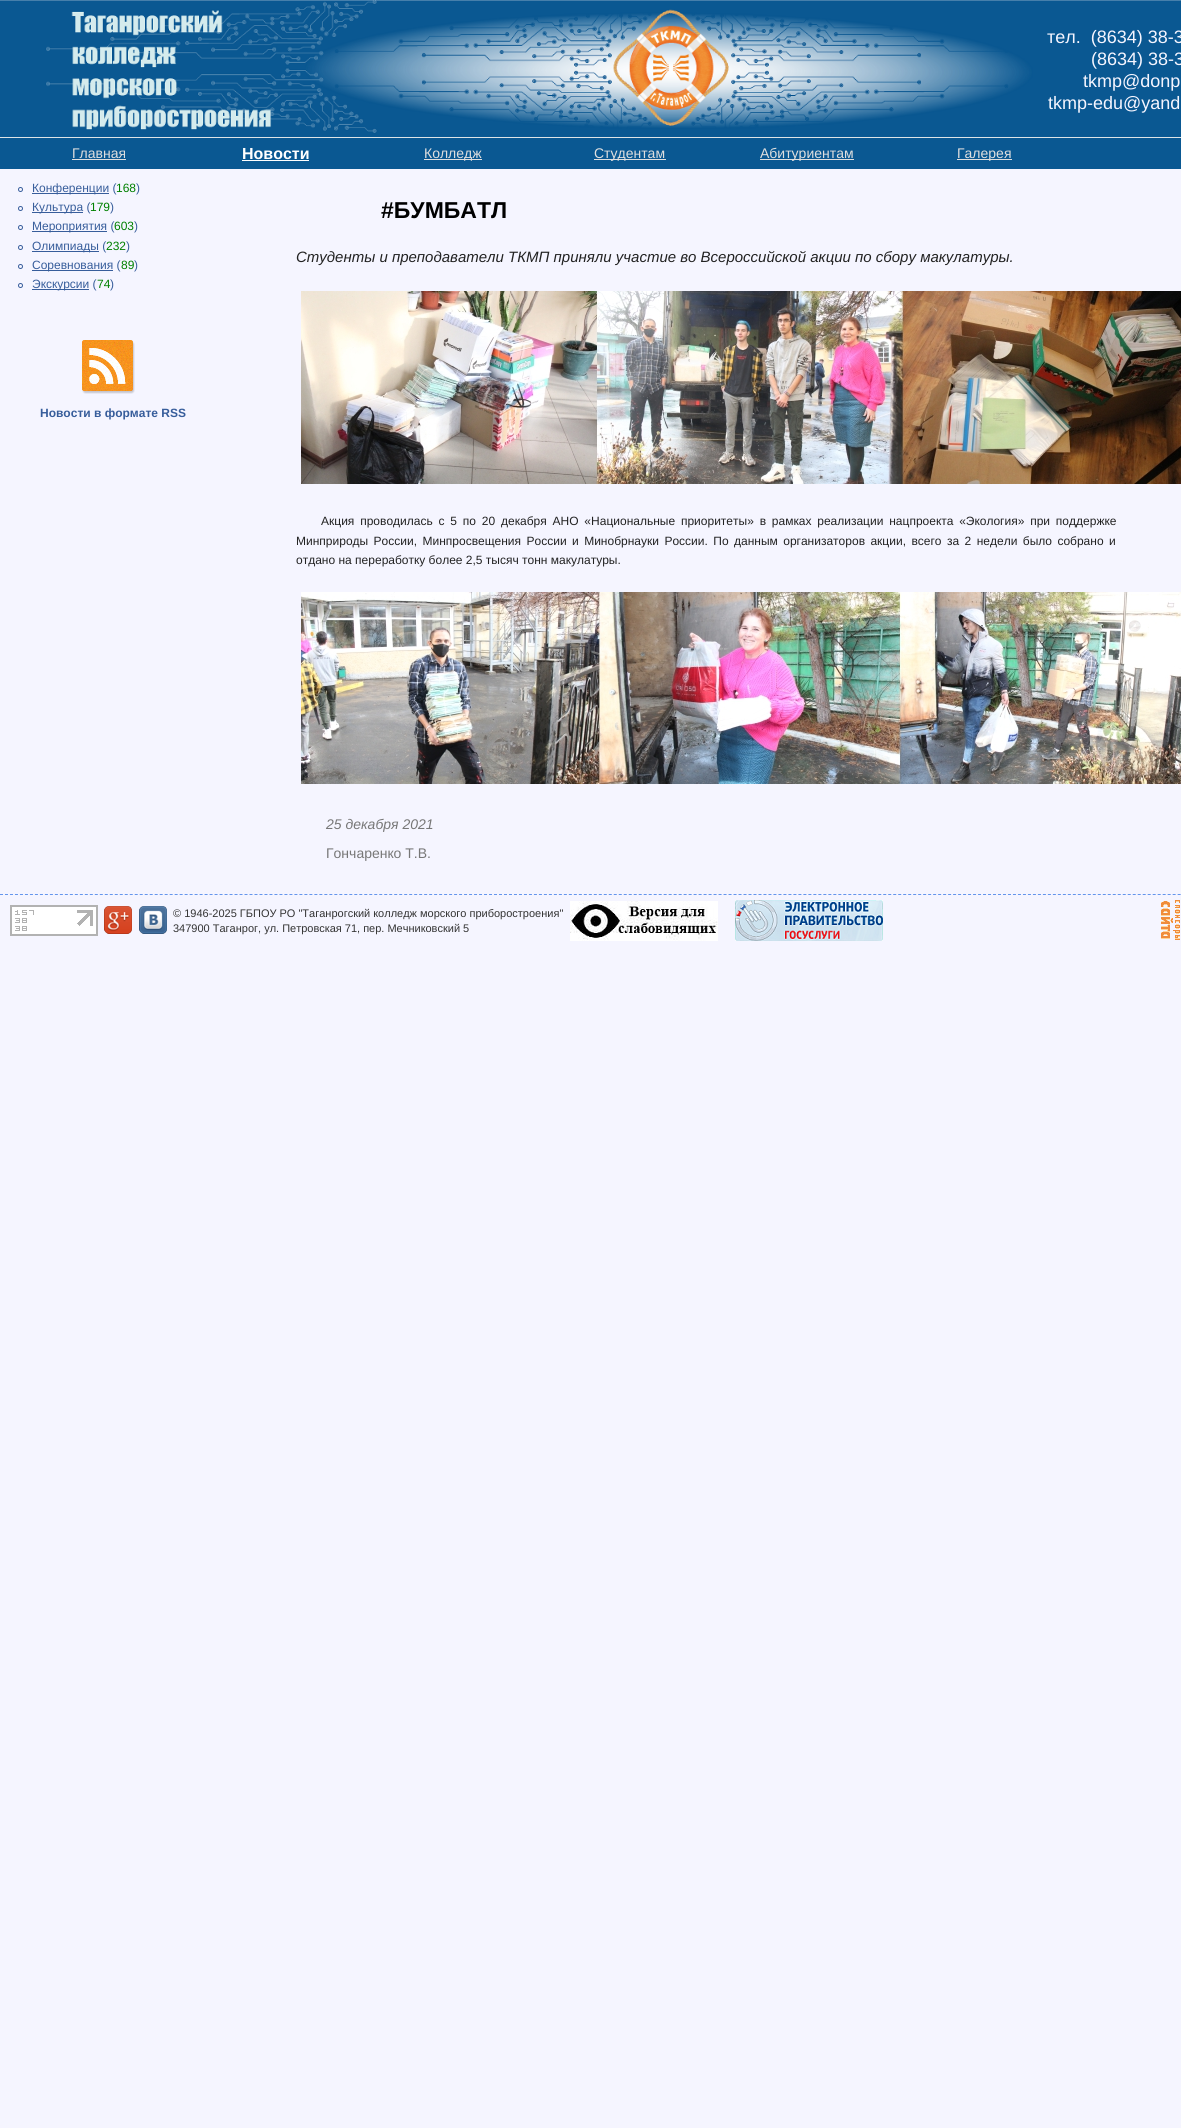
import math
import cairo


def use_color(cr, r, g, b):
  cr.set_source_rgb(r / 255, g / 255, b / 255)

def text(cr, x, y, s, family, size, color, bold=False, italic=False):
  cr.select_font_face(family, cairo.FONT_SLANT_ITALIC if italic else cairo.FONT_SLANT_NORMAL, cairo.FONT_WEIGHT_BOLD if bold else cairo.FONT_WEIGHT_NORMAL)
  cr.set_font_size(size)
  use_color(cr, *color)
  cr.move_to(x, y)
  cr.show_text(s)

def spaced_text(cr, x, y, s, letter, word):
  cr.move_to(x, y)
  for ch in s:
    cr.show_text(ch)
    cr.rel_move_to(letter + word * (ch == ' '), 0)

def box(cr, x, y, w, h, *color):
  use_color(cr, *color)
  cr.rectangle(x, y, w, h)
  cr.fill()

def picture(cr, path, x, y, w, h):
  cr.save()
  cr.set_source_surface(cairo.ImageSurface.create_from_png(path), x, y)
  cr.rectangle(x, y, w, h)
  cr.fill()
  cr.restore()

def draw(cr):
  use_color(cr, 245, 245, 255)
  cr.paint()
  box(cr, 0, 137, 1181, 1, 221, 228, 230)
  picture(cr, "img_01.png", 0, 0, 1181, 137)
  box(cr, 0, 138, 1181, 31, 10, 88, 146)
  box(cr, 72, 159, 54, 1, 223, 223, 223)
  box(cr, 242, 160, 67, 1, 255, 255, 255)
  box(cr, 424, 159, 58, 1, 223, 223, 223)
  box(cr, 594, 159, 72, 1, 223, 223, 223)
  box(cr, 760, 159, 94, 1, 223, 223, 223)
  box(cr, 957, 159, 55, 1, 223, 223, 223)
  cr.arc(20.5, 189.5, 2, 0, 2 * math.pi)
  use_color(cr, 55, 93, 155)
  cr.set_line_width(1)
  cr.stroke()
  box(cr, 32, 193, 77, 1, 55, 93, 155)
  cr.arc(20.5, 208.5, 2, 0, 2 * math.pi)
  cr.stroke()
  box(cr, 32, 212, 51, 1, 55, 93, 155)
  cr.arc(20.5, 227.5, 2, 0, 2 * math.pi)
  cr.stroke()
  box(cr, 32, 231, 75, 1, 55, 93, 155)
  cr.arc(20.5, 247.5, 2, 0, 2 * math.pi)
  cr.stroke()
  box(cr, 32, 251, 67, 1, 55, 93, 155)
  cr.arc(20.5, 266.5, 2, 0, 2 * math.pi)
  cr.stroke()
  box(cr, 32, 270, 81, 1, 55, 93, 155)
  cr.arc(20.5, 285.5, 2, 0, 2 * math.pi)
  cr.stroke()
  box(cr, 32, 289, 57, 1, 55, 93, 155)
  picture(cr, "img_02.png", 82, 340, 53, 54)
  picture(cr, "img_03.png", 301, 291, 880, 193)
  picture(cr, "img_04.png", 301, 592, 880, 192)
  cr.new_path()
  cr.move_to(0, 894.5)
  cr.line_to(1181, 894.5)
  use_color(cr, 100, 149, 237)
  cr.set_dash([3, 1.99])
  cr.stroke()
  picture(cr, "img_05.png", 10, 905, 88, 31)
  picture(cr, "img_06.png", 104, 906, 28, 28)
  picture(cr, "img_07.png", 139, 906, 28, 28)
  picture(cr, "img_08.png", 570, 901, 148, 40)
  picture(cr, "img_09.png", 735, 900, 148, 41)
  picture(cr, "img_10.png", 1161, 900, 19, 40)
  text(cr, 1047, 43, "тел.  (8634) 38-3", "Liberation Sans", 18, (245, 245, 255))
  text(cr, 1091, 65, "(8634) 38-3", "Liberation Sans", 18, (245, 245, 255))
  text(cr, 1083, 87, "tkmp@donp", "Liberation Sans", 18, (245, 245, 255))
  text(cr, 1048, 109, "tkmp-edu@yand", "Liberation Sans", 18, (245, 245, 255))
  text(cr, 72, 158, "Главная", "Liberation Sans", 14, (223, 223, 223))
  text(cr, 242, 159, "Новости", "Liberation Sans", 16, (255, 255, 255), bold=True)
  text(cr, 424, 158, "Колледж", "Liberation Sans", 14, (223, 223, 223))
  text(cr, 594, 158, "Студентам", "Liberation Sans", 14, (223, 223, 223))
  text(cr, 760, 158, "Абитуриентам", "Liberation Sans", 14, (223, 223, 223))
  text(cr, 957, 158, "Галерея", "Liberation Sans", 14, (223, 223, 223))
  text(cr, 32, 192, "Конференции (", "Liberation Sans", 12, (55, 93, 155))
  text(cr, 116, 192, "168", "Liberation Sans", 12, (0, 128, 0))
  text(cr, 136, 192, ")", "Liberation Sans", 12, (55, 93, 155))
  text(cr, 32, 211, "Культура (", "Liberation Sans", 12, (55, 93, 155))
  text(cr, 90, 211, "179", "Liberation Sans", 12, (0, 128, 0))
  text(cr, 110, 211, ")", "Liberation Sans", 12, (55, 93, 155))
  text(cr, 32, 230, "Мероприятия (", "Liberation Sans", 12, (55, 93, 155))
  text(cr, 114, 230, "603", "Liberation Sans", 12, (0, 128, 0))
  text(cr, 134, 230, ")", "Liberation Sans", 12, (55, 93, 155))
  text(cr, 32, 250, "Олимпиады (", "Liberation Sans", 12, (55, 93, 155))
  text(cr, 106, 250, "232", "Liberation Sans", 12, (0, 128, 0))
  text(cr, 126, 250, ")", "Liberation Sans", 12, (55, 93, 155))
  text(cr, 32, 269, "Соревнования (", "Liberation Sans", 12, (55, 93, 155))
  text(cr, 121, 269, "89", "Liberation Sans", 12, (0, 128, 0))
  text(cr, 134, 269, ")", "Liberation Sans", 12, (55, 93, 155))
  text(cr, 32, 288, "Экскурсии (", "Liberation Sans", 12, (55, 93, 155))
  text(cr, 97, 288, "74", "Liberation Sans", 12, (0, 128, 0))
  text(cr, 110, 288, ")", "Liberation Sans", 12, (55, 93, 155))
  text(cr, 40, 417, "Новости в формате RSS", "Liberation Sans", 12, (55, 93, 155), bold=True)
  text(cr, 381, 218, "#БУМБАТЛ", "Liberation Sans", 23, (0, 0, 0), bold=True)
  text(cr, 296, 262, "Студенты и преподаватели ТКМП приняли участие во Всероссийской акции по сбору макулатуры.", "Liberation Sans", 15, (34, 34, 34), italic=True)
  cr.select_font_face("Liberation Sans")
  cr.set_font_size(12)
  spaced_text(cr, 321, 525, "Акция проводилась с 5 по 20 декабря АНО «Национальные приоритеты» в рамках реализации нацпроекта «Экология» при поддержке", 0, 2.5)
  spaced_text(cr, 296, 545, "Минприроды России, Минпросвещения России и Минобрнауки России. По данным организаторов акции, всего за 2 недели было собрано и", 0, 2.1)
  text(cr, 296, 564, "отдано на переработку более 2,5 тысяч тонн макулатуры.", "Liberation Sans", 12, (34, 34, 34))
  text(cr, 326, 829, "25 декабря 2021", "Liberation Sans", 14, (119, 119, 119), italic=True)
  text(cr, 326, 858, "Гончаренко Т.В.", "Liberation Sans", 14, (119, 119, 119))
  text(cr, 173, 917, "© 1946-2025 ГБПОУ РО \"Таганрогский колледж морского приборостроения\"", "Liberation Sans", 11, (51, 51, 51))
  text(cr, 173, 932, "347900 Таганрог, ул. Петровская 71, пер. Мечниковский 5", "Liberation Sans", 11, (51, 51, 51))


surface = cairo.ImageSurface(cairo.FORMAT_RGB24, 1181, 2128)
cr = cairo.Context(surface)
options = cairo.FontOptions()
options.set_hint_metrics(cairo.HINT_METRICS_OFF)
options.set_hint_style(cairo.HINT_STYLE_NONE)
cr.set_font_options(options)
cr.set_miter_limit(4)
draw(cr)
surface.write_to_png("out.png")
